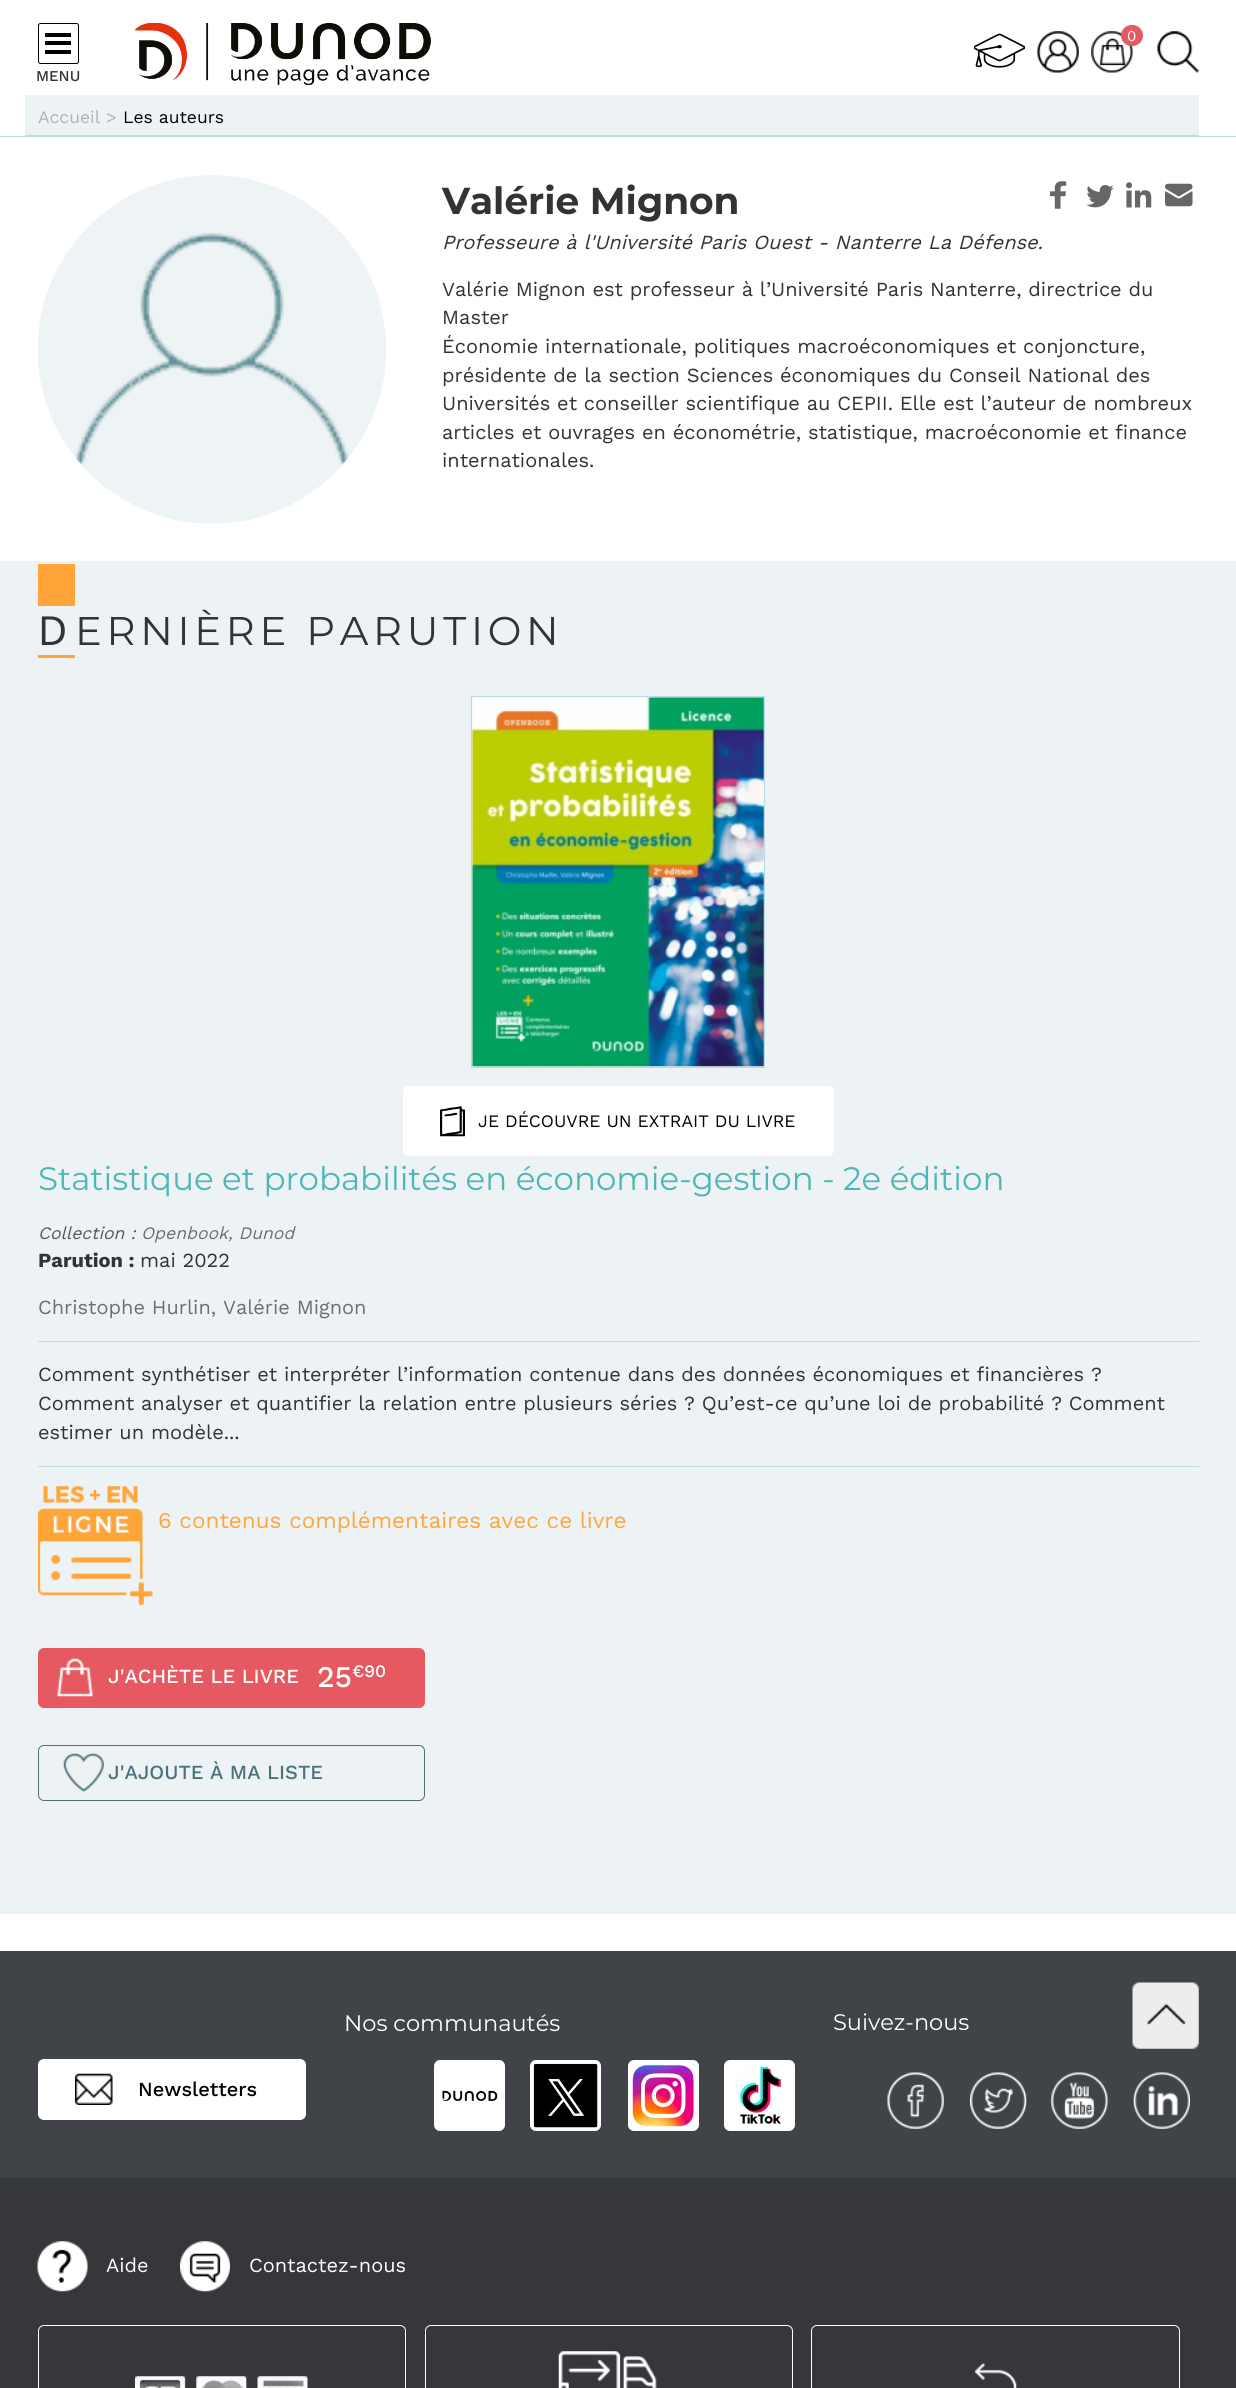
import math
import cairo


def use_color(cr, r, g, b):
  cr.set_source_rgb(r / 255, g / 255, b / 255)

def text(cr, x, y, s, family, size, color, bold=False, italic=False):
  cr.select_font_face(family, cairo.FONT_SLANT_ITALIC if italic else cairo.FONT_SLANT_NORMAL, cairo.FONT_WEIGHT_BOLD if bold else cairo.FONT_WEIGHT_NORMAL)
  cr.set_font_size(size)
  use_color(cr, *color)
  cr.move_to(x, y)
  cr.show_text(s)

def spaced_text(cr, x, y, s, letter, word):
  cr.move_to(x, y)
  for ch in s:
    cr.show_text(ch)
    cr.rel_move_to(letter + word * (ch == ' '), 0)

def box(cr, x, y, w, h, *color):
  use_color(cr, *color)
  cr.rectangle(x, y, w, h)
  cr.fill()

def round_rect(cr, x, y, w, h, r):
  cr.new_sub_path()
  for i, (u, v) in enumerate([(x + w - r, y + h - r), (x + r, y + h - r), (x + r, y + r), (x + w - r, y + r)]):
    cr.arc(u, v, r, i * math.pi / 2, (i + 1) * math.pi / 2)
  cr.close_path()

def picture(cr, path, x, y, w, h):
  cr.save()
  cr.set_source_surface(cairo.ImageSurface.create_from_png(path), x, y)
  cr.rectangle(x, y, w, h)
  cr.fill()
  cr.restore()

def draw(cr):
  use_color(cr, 255, 255, 255)
  cr.paint()
  picture(cr, "img_01.png", 135, 23, 296, 62)
  picture(cr, "img_02.png", 974, 33, 51, 35)
  picture(cr, "img_03.png", 1037, 31, 42, 42)
  picture(cr, "img_04.png", 1091, 31, 42, 42)
  use_color(cr, 231, 89, 96)
  round_rect(cr, 1121.5, 25.5, 21, 20, 10)
  cr.fill_preserve()
  cr.set_line_width(1)
  cr.stroke()
  picture(cr, "img_05.png", 1157, 31, 42, 42)
  round_rect(cr, 38.5, 23.5, 40, 40, 2)
  use_color(cr, 0, 0, 0)
  cr.stroke()
  box(cr, 45, 33, 26, 4, 0, 0, 0)
  box(cr, 45, 41, 26, 4, 0, 0, 0)
  box(cr, 45, 50, 26, 4, 0, 0, 0)
  box(cr, 25, 95, 1174, 40, 237, 243, 244)
  box(cr, 25, 135, 1174, 1, 186, 219, 225)
  box(cr, 0, 136, 1236, 1, 186, 219, 225)
  picture(cr, "img_06.png", 37, 175, 349, 349)
  picture(cr, "img_07.png", 1050, 181, 17, 28)
  picture(cr, "img_08.png", 1086, 185, 28, 23)
  picture(cr, "img_09.png", 1126, 182, 26, 26)
  picture(cr, "img_10.png", 1165, 183, 28, 24)
  box(cr, 0, 561, 1236, 1353, 237, 243, 244)
  box(cr, 38, 564, 37, 42, 255, 165, 58)
  box(cr, 38, 655, 37, 3, 255, 165, 58)
  cr.rectangle(471.5, 696.5, 293, 371)
  use_color(cr, 186, 219, 225)
  cr.stroke()
  picture(cr, "img_11.png", 472, 697, 292, 370)
  use_color(cr, 255, 255, 255)
  round_rect(cr, 403, 1086, 431, 70, 6)
  cr.fill()
  picture(cr, "img_12.png", 440, 1106, 25, 31)
  box(cr, 38, 1341, 1161, 1, 186, 219, 225)
  box(cr, 38, 1466, 1161, 1, 186, 219, 225)
  picture(cr, "img_13.png", 38, 1486, 115, 120)
  use_color(cr, 231, 89, 96)
  round_rect(cr, 38, 1648, 387, 60, 6)
  cr.fill()
  picture(cr, "img_14.png", 57, 1658, 36, 39)
  picture(cr, "img_15.png", 63, 1753, 41, 39)
  round_rect(cr, 38.5, 1745.5, 386, 55, 5.5)
  use_color(cr, 75, 112, 121)
  cr.stroke()
  box(cr, 0, 1951, 1236, 227, 64, 67, 71)
  use_color(cr, 255, 255, 255)
  round_rect(cr, 436, 2062, 67, 67, 4)
  cr.fill_preserve()
  cr.set_line_width(4)
  cr.stroke()
  picture(cr, "img_16.png", 442, 2090, 56, 11)
  round_rect(cr, 532, 2062, 67, 67, 4)
  cr.stroke()
  picture(cr, "img_17.png", 533, 2063, 65, 65)
  round_rect(cr, 630, 2062, 67, 67, 4)
  cr.stroke()
  picture(cr, "img_18.png", 632, 2064, 63, 63)
  round_rect(cr, 726, 2062, 67, 67, 4)
  cr.fill_preserve()
  cr.stroke()
  picture(cr, "img_19.png", 739, 2065, 43, 60)
  picture(cr, "img_20.png", 887, 2072, 57, 57)
  picture(cr, "img_21.png", 970, 2072, 57, 57)
  picture(cr, "img_22.png", 1051, 2072, 57, 57)
  picture(cr, "img_23.png", 1133, 2072, 57, 57)
  round_rect(cr, 38, 2059, 268, 61, 6)
  cr.fill()
  picture(cr, "img_24.png", 75, 2073, 38, 32)
  box(cr, 0, 2178, 1236, 210, 53, 55, 59)
  picture(cr, "img_25.png", 37, 2241, 51, 51)
  picture(cr, "img_26.png", 180, 2241, 50, 51)
  picture(cr, "img_27.png", 135, 2376, 173, 12)
  round_rect(cr, 38.5, 2325.5, 367, 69, 5.5)
  use_color(cr, 255, 255, 255)
  cr.set_line_width(1)
  cr.stroke()
  picture(cr, "img_28.png", 558, 2351, 99, 37)
  round_rect(cr, 425.5, 2325.5, 367, 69, 5.5)
  cr.stroke()
  picture(cr, "img_29.png", 975, 2363, 42, 25)
  round_rect(cr, 811.5, 2325.5, 368, 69, 5.5)
  cr.stroke()
  picture(cr, "img_30.png", 1132, 1982, 67, 67)
  text(cr, 1127, 41, "0", "Work Sans", 15, (255, 255, 255))
  text(cr, 36, 81, "MENU", "Work Sans Medium", 15, (51, 51, 51))
  text(cr, 38, 123, "Accueil >", "Work Sans", 17.5, (177, 177, 177))
  text(cr, 123, 123, "Les auteurs", "Work Sans", 17.5, (1, 1, 1))
  text(cr, 442, 214, "Valérie Mignon", "Montserrat", 37.5, (51, 51, 51), bold=True)
  text(cr, 442, 249, "Professeure à l'Université Paris Ouest - Nanterre La Défense.", "Work Sans", 20, (51, 51, 51), italic=True)
  text(cr, 442, 296, "Valérie Mignon est professeur à l’Université Paris Nanterre, directrice du", "Work Sans", 20, (51, 51, 51))
  text(cr, 442, 324, "Master", "Work Sans", 20, (51, 51, 51))
  text(cr, 442, 353, "Économie internationale, politiques macroéconomiques et conjoncture,", "Work Sans", 20, (51, 51, 51))
  text(cr, 442, 382, "présidente de la section Sciences économiques du Conseil National des", "Work Sans", 20, (51, 51, 51))
  text(cr, 442, 410, "Universités et conseiller scientifique au CEPII. Elle est l’auteur de nombreux", "Work Sans", 20, (51, 51, 51))
  text(cr, 442, 439, "articles et ouvrages en économétrie, statistique, macroéconomie et finance", "Work Sans", 20, (51, 51, 51))
  text(cr, 442, 467, "internationales.", "Work Sans", 20, (51, 51, 51))
  cr.select_font_face("Noto Sans")
  cr.set_font_size(40)
  spaced_text(cr, 38, 645, "D", 4.75, 0)
  cr.select_font_face("Montserrat")
  spaced_text(cr, 75, 645, "ERNIÈRE PARUTION", 4.75, 0)
  text(cr, 478, 1127, "JE DÉCOUVRE UN EXTRAIT DU LIVRE", "Work Sans", 17.5, (1, 1, 1))
  text(cr, 38, 1190, "Statistique et probabilités en économie-gestion - 2e édition", "Montserrat", 32.5, (78, 182, 183))
  text(cr, 38, 1239, "Collection :", "Work Sans", 17.5, (88, 87, 87), italic=True)
  text(cr, 141, 1239, "Openbook, Dunod", "Work Sans", 17.5, (110, 110, 110), italic=True)
  text(cr, 38, 1267, "Parution :", "Work Sans", 20, (51, 51, 51), bold=True)
  text(cr, 140, 1267, "mai 2022", "Work Sans", 20, (51, 51, 51))
  text(cr, 38, 1314, "Christophe Hurlin, Valérie Mignon", "Work Sans", 20, (110, 110, 110))
  text(cr, 38, 1381, "Comment synthétiser et interpréter l’information contenue dans des données économiques et financières ?", "Work Sans", 20, (51, 51, 51))
  text(cr, 38, 1410, "Comment analyser et quantifier la relation entre plusieurs séries ? Qu’est-ce qu’une loi de probabilité ? Comment", "Work Sans", 20, (51, 51, 51))
  text(cr, 38, 1439, "estimer un modèle...", "Work Sans", 20, (51, 51, 51))
  text(cr, 158, 1528, "6 contenus complémentaires avec ce livre", "Work Sans", 22.5, (255, 165, 58))
  text(cr, 108, 1683, "J'ACHÈTE LE LIVRE", "Work Sans Medium", 20, (255, 255, 255))
  text(cr, 317, 1687, "25", "Work Sans Medium", 30, (255, 255, 255))
  text(cr, 352, 1677, "€90", "Work Sans Medium", 17.5, (255, 255, 255))
  text(cr, 108, 1779, "J'AJOUTE À MA LISTE", "Work Sans Medium", 20, (75, 112, 121))
  text(cr, 344, 2031, "Nos communautés", "Montserrat", 22.5, (255, 255, 255))
  text(cr, 833, 2030, "Suivez-nous", "Montserrat", 22.5, (255, 255, 255))
  text(cr, 138, 2096, "Newsletters", "Work Sans Medium", 20, (1, 1, 1))
  text(cr, 106, 2272, "Aide", "Work Sans", 20, (255, 255, 255))
  text(cr, 249, 2272, "Contactez-nous", "Work Sans", 20, (255, 255, 255))


surface = cairo.ImageSurface(cairo.FORMAT_RGB24, 1236, 2388)
cr = cairo.Context(surface)
options = cairo.FontOptions()
options.set_hint_metrics(cairo.HINT_METRICS_OFF)
options.set_hint_style(cairo.HINT_STYLE_NONE)
cr.set_font_options(options)
cr.set_miter_limit(4)
draw(cr)
surface.write_to_png("out.png")
